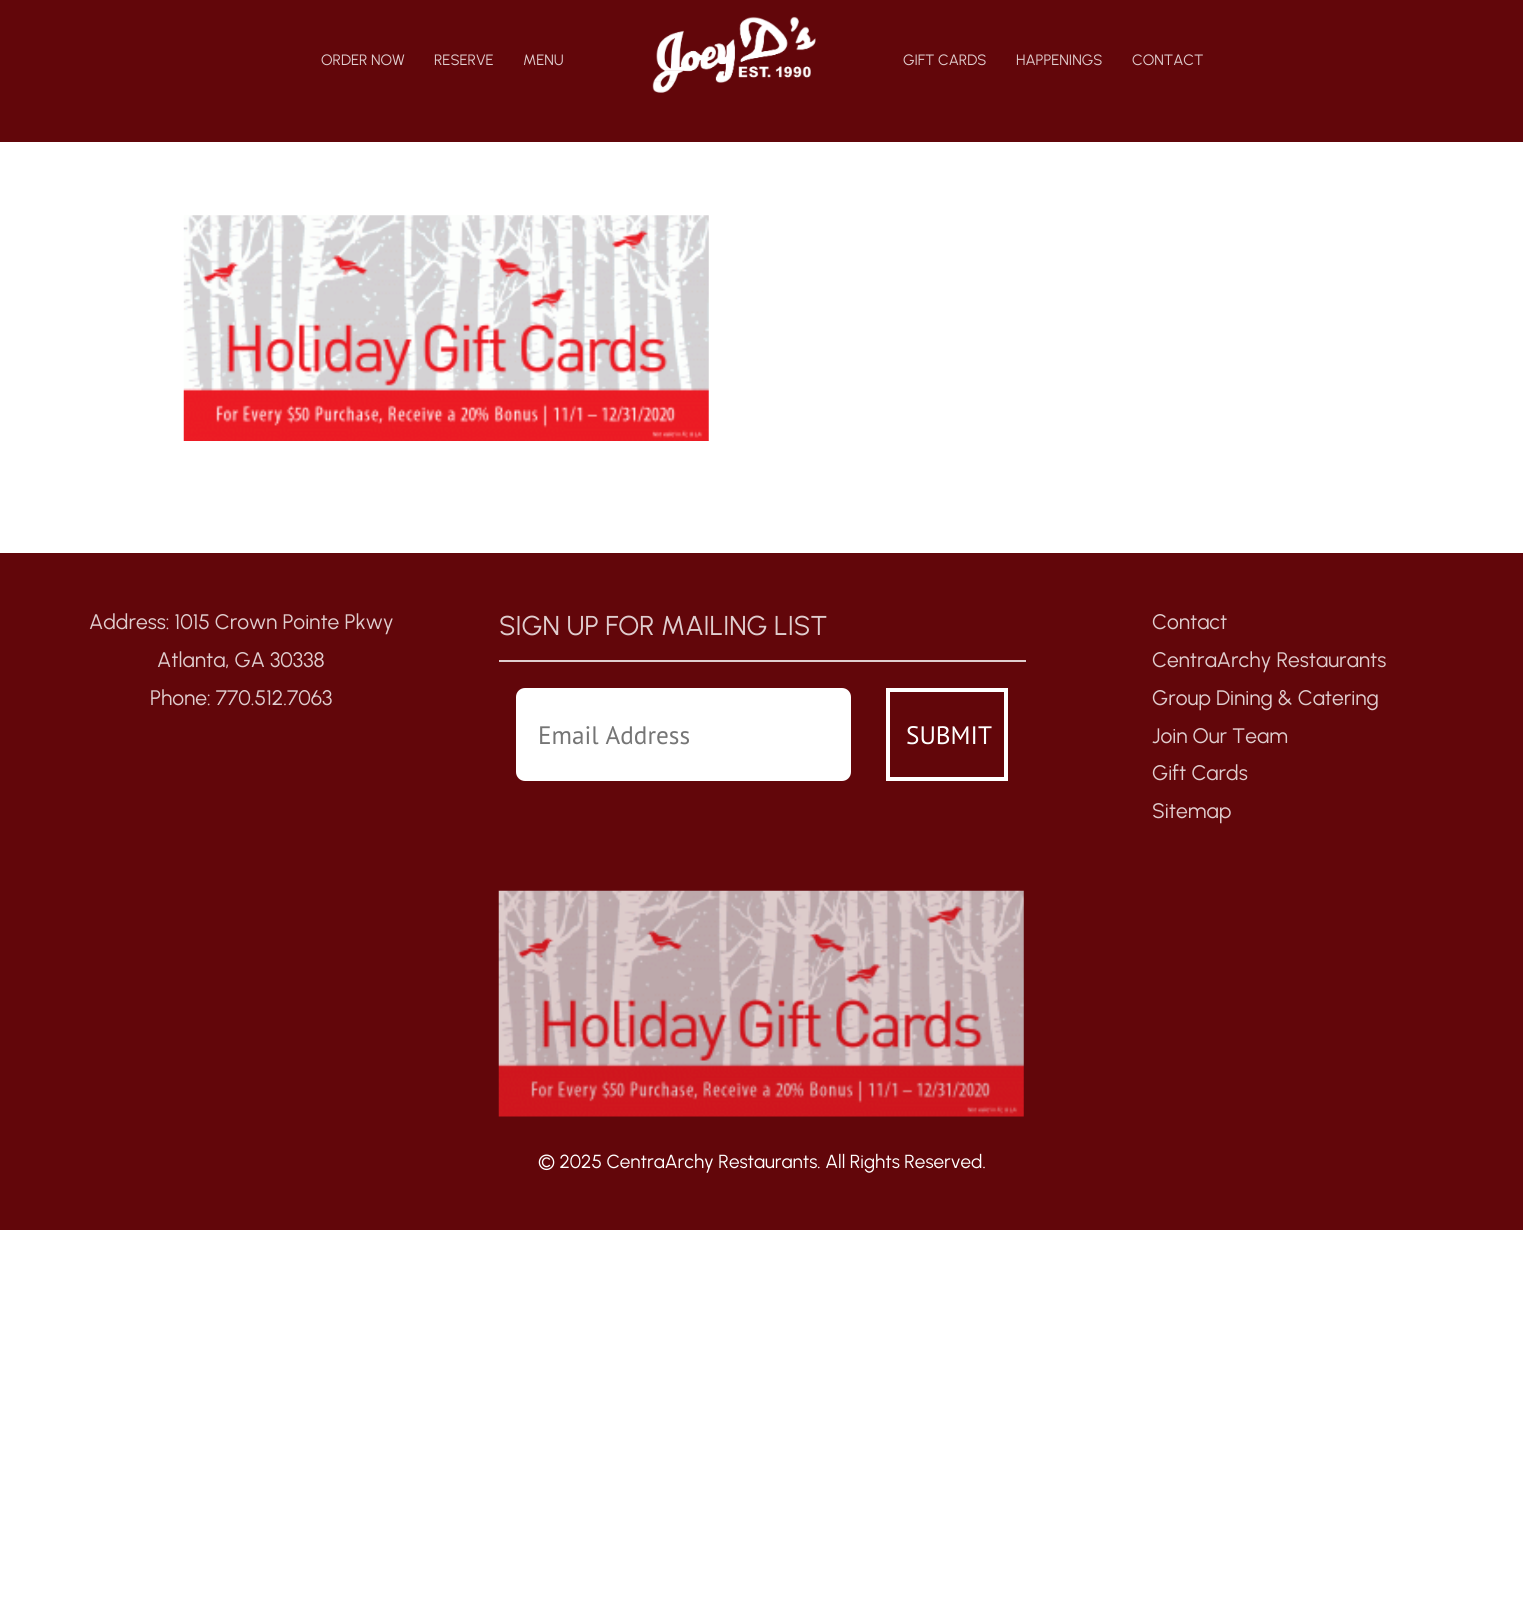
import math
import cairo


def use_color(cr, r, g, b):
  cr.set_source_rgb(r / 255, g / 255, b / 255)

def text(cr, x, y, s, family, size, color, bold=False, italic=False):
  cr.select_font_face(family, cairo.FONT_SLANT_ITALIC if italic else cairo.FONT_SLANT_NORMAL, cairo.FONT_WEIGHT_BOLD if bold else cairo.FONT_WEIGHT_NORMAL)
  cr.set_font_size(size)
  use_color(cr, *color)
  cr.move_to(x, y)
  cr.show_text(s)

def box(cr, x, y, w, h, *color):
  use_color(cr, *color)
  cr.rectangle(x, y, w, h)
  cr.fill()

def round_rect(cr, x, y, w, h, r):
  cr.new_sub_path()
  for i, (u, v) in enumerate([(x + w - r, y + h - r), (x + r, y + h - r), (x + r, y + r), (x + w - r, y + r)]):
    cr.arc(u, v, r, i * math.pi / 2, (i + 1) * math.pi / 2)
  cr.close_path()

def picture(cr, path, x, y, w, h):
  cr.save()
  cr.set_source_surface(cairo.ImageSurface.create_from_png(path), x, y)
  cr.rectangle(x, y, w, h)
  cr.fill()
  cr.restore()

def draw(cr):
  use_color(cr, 255, 255, 255)
  cr.paint()
  box(cr, 0, 0, 1523, 142, 98, 6, 10)
  picture(cr, "img_01.png", 652, 16, 164, 77)
  picture(cr, "img_02.png", 183, 215, 526, 226)
  box(cr, 0, 553, 1523, 677, 98, 6, 10)
  box(cr, 499, 660, 527, 2, 224, 205, 206)
  use_color(cr, 255, 255, 255)
  round_rect(cr, 518, 690, 331, 89, 7)
  cr.fill_preserve()
  cr.set_line_width(4)
  cr.stroke()
  cr.rectangle(888, 690, 118, 89)
  cr.stroke()
  picture(cr, "img_03.png", 498, 890, 526, 227)
  text(cr, 321, 65, "ORDER NOW", "Urbanist", 15, (224, 205, 206))
  text(cr, 434, 65, "RESERVE", "Urbanist", 15, (224, 205, 206))
  text(cr, 523, 65, "MENU", "Urbanist", 15, (224, 205, 206))
  text(cr, 903, 65, "GIFT CARDS", "Urbanist", 15, (224, 205, 206))
  text(cr, 1016, 65, "HAPPENINGS", "Urbanist", 15, (224, 205, 206))
  text(cr, 1132, 65, "CONTACT", "Urbanist", 15, (224, 205, 206))
  text(cr, 89, 629, "Address: 1015 Crown Pointe Pkwy", "Urbanist", 21, (224, 205, 206))
  text(cr, 157, 667, "Atlanta, GA 30338", "Urbanist", 21, (224, 205, 206))
  text(cr, 150, 705, "Phone: 770.512.7063", "Urbanist", 21, (224, 205, 206))
  text(cr, 499, 635, "SIGN UP FOR MAILING LIST", "Urbanist", 27.25, (224, 205, 206))
  text(cr, 538, 744, "Email Address", "PT Sans", 25.25, (117, 117, 117))
  text(cr, 906, 744, "SUBMIT", "PT Sans", 25.25, (255, 255, 255))
  text(cr, 1152, 629, "Contact", "Urbanist", 21, (224, 205, 206))
  text(cr, 1152, 667, "CentraArchy Restaurants", "Urbanist", 21, (224, 205, 206))
  text(cr, 1152, 705, "Group Dining & Catering", "Urbanist", 21, (224, 205, 206))
  text(cr, 1152, 743, "Join Our Team", "Urbanist", 21, (224, 205, 206))
  text(cr, 1152, 780, "Gift Cards", "Urbanist", 21, (224, 205, 206))
  text(cr, 1152, 818, "Sitemap", "Urbanist", 21, (224, 205, 206))
  text(cr, 538, 1168, "© 2025 CentraArchy Restaurants. All Rights Reserved.", "Urbanist", 18.9, (255, 255, 255))


surface = cairo.ImageSurface(cairo.FORMAT_RGB24, 1523, 1623)
cr = cairo.Context(surface)
options = cairo.FontOptions()
options.set_hint_metrics(cairo.HINT_METRICS_OFF)
options.set_hint_style(cairo.HINT_STYLE_NONE)
cr.set_font_options(options)
cr.set_miter_limit(4)
draw(cr)
surface.write_to_png("out.png")
